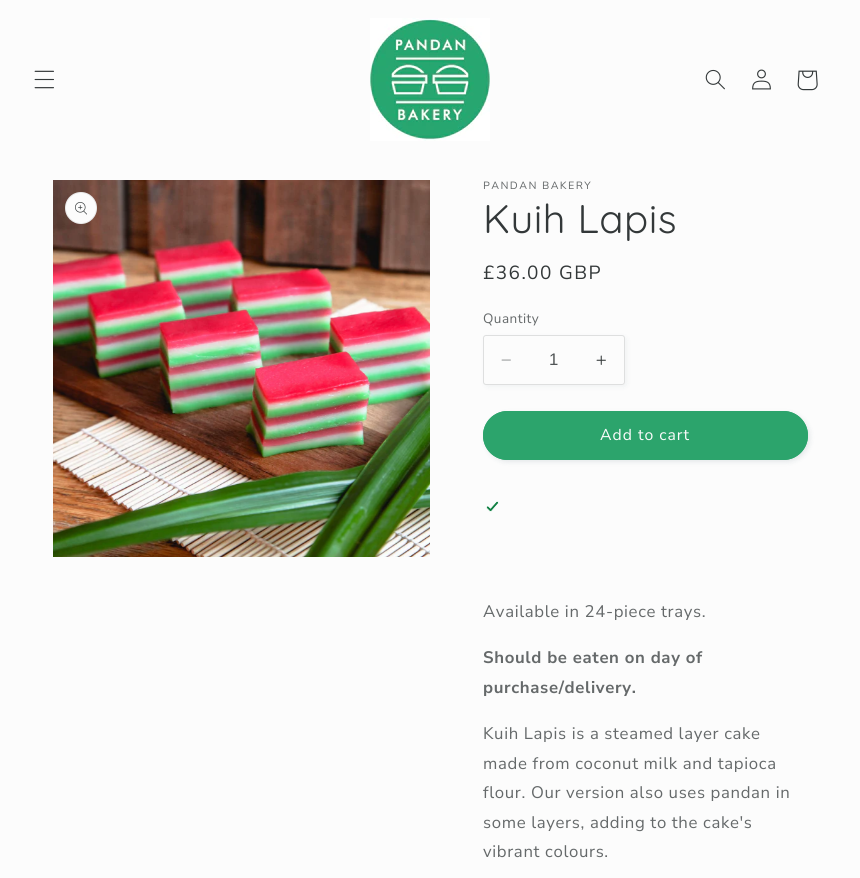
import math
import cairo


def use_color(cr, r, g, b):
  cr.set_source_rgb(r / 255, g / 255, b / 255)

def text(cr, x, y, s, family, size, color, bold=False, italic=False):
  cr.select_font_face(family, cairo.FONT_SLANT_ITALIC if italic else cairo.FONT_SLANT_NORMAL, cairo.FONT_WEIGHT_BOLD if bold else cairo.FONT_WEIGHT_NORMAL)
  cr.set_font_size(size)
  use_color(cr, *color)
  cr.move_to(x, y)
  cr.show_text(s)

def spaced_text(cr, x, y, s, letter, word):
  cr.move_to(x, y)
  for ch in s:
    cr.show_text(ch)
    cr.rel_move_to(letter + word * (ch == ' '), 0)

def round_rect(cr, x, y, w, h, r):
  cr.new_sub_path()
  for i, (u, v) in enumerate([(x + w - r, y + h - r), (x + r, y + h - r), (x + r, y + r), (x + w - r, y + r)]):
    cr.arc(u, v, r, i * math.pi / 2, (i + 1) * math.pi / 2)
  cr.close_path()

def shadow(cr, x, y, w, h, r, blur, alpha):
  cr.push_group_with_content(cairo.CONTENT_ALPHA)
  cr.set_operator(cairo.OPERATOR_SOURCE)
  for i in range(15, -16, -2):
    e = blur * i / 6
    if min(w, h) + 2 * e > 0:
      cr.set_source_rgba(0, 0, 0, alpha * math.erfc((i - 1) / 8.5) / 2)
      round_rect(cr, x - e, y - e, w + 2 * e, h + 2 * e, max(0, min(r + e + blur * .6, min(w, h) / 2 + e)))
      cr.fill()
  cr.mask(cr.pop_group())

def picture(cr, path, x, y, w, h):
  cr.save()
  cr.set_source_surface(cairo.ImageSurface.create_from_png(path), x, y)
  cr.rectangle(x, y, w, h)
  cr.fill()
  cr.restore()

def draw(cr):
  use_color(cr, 252, 252, 252)
  cr.paint()
  picture(cr, "img_01.png", 34, 70, 20, 19)
  picture(cr, "img_02.png", 370, 18, 120, 123)
  picture(cr, "img_03.png", 705, 69, 20, 21)
  picture(cr, "img_04.png", 752, 69, 19, 21)
  picture(cr, "img_05.png", 797, 70, 21, 21)
  picture(cr, "img_06.png", 53, 180, 377, 377)
  use_color(cr, 252, 252, 252)
  cr.arc(81, 208, 16, 0, 2 * math.pi)
  cr.fill()
  cr.arc(81, 208, 15.5, 0, 2 * math.pi)
  cr.set_source_rgba(0.2, 0.22, 0.224, 0.1)
  cr.set_line_width(1)
  cr.stroke()
  picture(cr, "img_07.png", 75, 202, 12, 13)
  use_color(cr, 16, 57, 72)
  shadow(cr, 485, 337, 142, 50, 3, 2.5, 0.05)
  use_color(cr, 252, 252, 252)
  round_rect(cr, 483, 335, 142, 50, 3)
  cr.fill()
  picture(cr, "img_08.png", 501, 359, 10, 2)
  picture(cr, "img_09.png", 596, 355, 10, 10)
  round_rect(cr, 483.5, 335.5, 141, 49, 2.5)
  use_color(cr, 222, 223, 223)
  cr.stroke()
  use_color(cr, 16, 57, 72)
  shadow(cr, 485, 413, 325, 49, 24.5, 2.5, 0.1)
  use_color(cr, 44, 164, 108)
  round_rect(cr, 483, 411, 325, 49, 24.5)
  cr.fill()
  round_rect(cr, 483.5, 411.5, 324, 48, 24)
  cr.stroke()
  picture(cr, "img_10.png", 486, 501, 13, 11)
  cr.select_font_face("Nunito Sans")
  cr.set_font_size(10.5)
  use_color(cr, 101, 105, 106)
  spaced_text(cr, 483, 189, "PANDAN BAKERY", 1.4, 0)
  cr.select_font_face("Quicksand")
  cr.set_font_size(40)
  use_color(cr, 51, 56, 57)
  spaced_text(cr, 483, 233, "Kuih Lapis", 0.5, 0)
  cr.select_font_face("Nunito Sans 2")
  cr.set_font_size(19)
  spaced_text(cr, 483, 279, "£36.00 GBP", 1.4, 0)
  cr.set_font_size(13.5)
  use_color(cr, 101, 105, 106)
  spaced_text(cr, 483, 323, "Quantity", 0.5, 0)
  text(cr, 549, 365, "1", "Liberation Sans", 16.75, (81, 85, 86))
  cr.select_font_face("Nunito Sans 2")
  cr.set_font_size(15.75)
  use_color(cr, 252, 252, 252)
  spaced_text(cr, 600, 440, "Add to cart", 1, 0)
  cr.set_font_size(16.75)
  use_color(cr, 101, 105, 106)
  spaced_text(cr, 483, 617, "Available in 24-piece trays.", 0.65, 0)
  cr.select_font_face("Nunito Sans", cairo.FONT_SLANT_NORMAL, cairo.FONT_WEIGHT_BOLD)
  spaced_text(cr, 483, 663, "Should be eaten on day of", 0.65, 0)
  spaced_text(cr, 483, 693, "purchase/delivery.", 0.65, 0)
  cr.select_font_face("Nunito Sans 2")
  spaced_text(cr, 483, 739, "Kuih Lapis is a steamed layer cake", 0.65, 0)
  spaced_text(cr, 483, 769, "made from coconut milk and tapioca", 0.65, 0)
  spaced_text(cr, 483, 798, "flour. Our version also uses pandan in", 0.65, 0)
  spaced_text(cr, 483, 828, "some layers, adding to the cake's", 0.65, 0)
  spaced_text(cr, 483, 857, "vibrant colours.", 0.65, 0)


surface = cairo.ImageSurface(cairo.FORMAT_RGB24, 860, 878)
cr = cairo.Context(surface)
options = cairo.FontOptions()
options.set_hint_metrics(cairo.HINT_METRICS_OFF)
options.set_hint_style(cairo.HINT_STYLE_NONE)
cr.set_font_options(options)
cr.set_miter_limit(4)
draw(cr)
surface.write_to_png("out.png")
